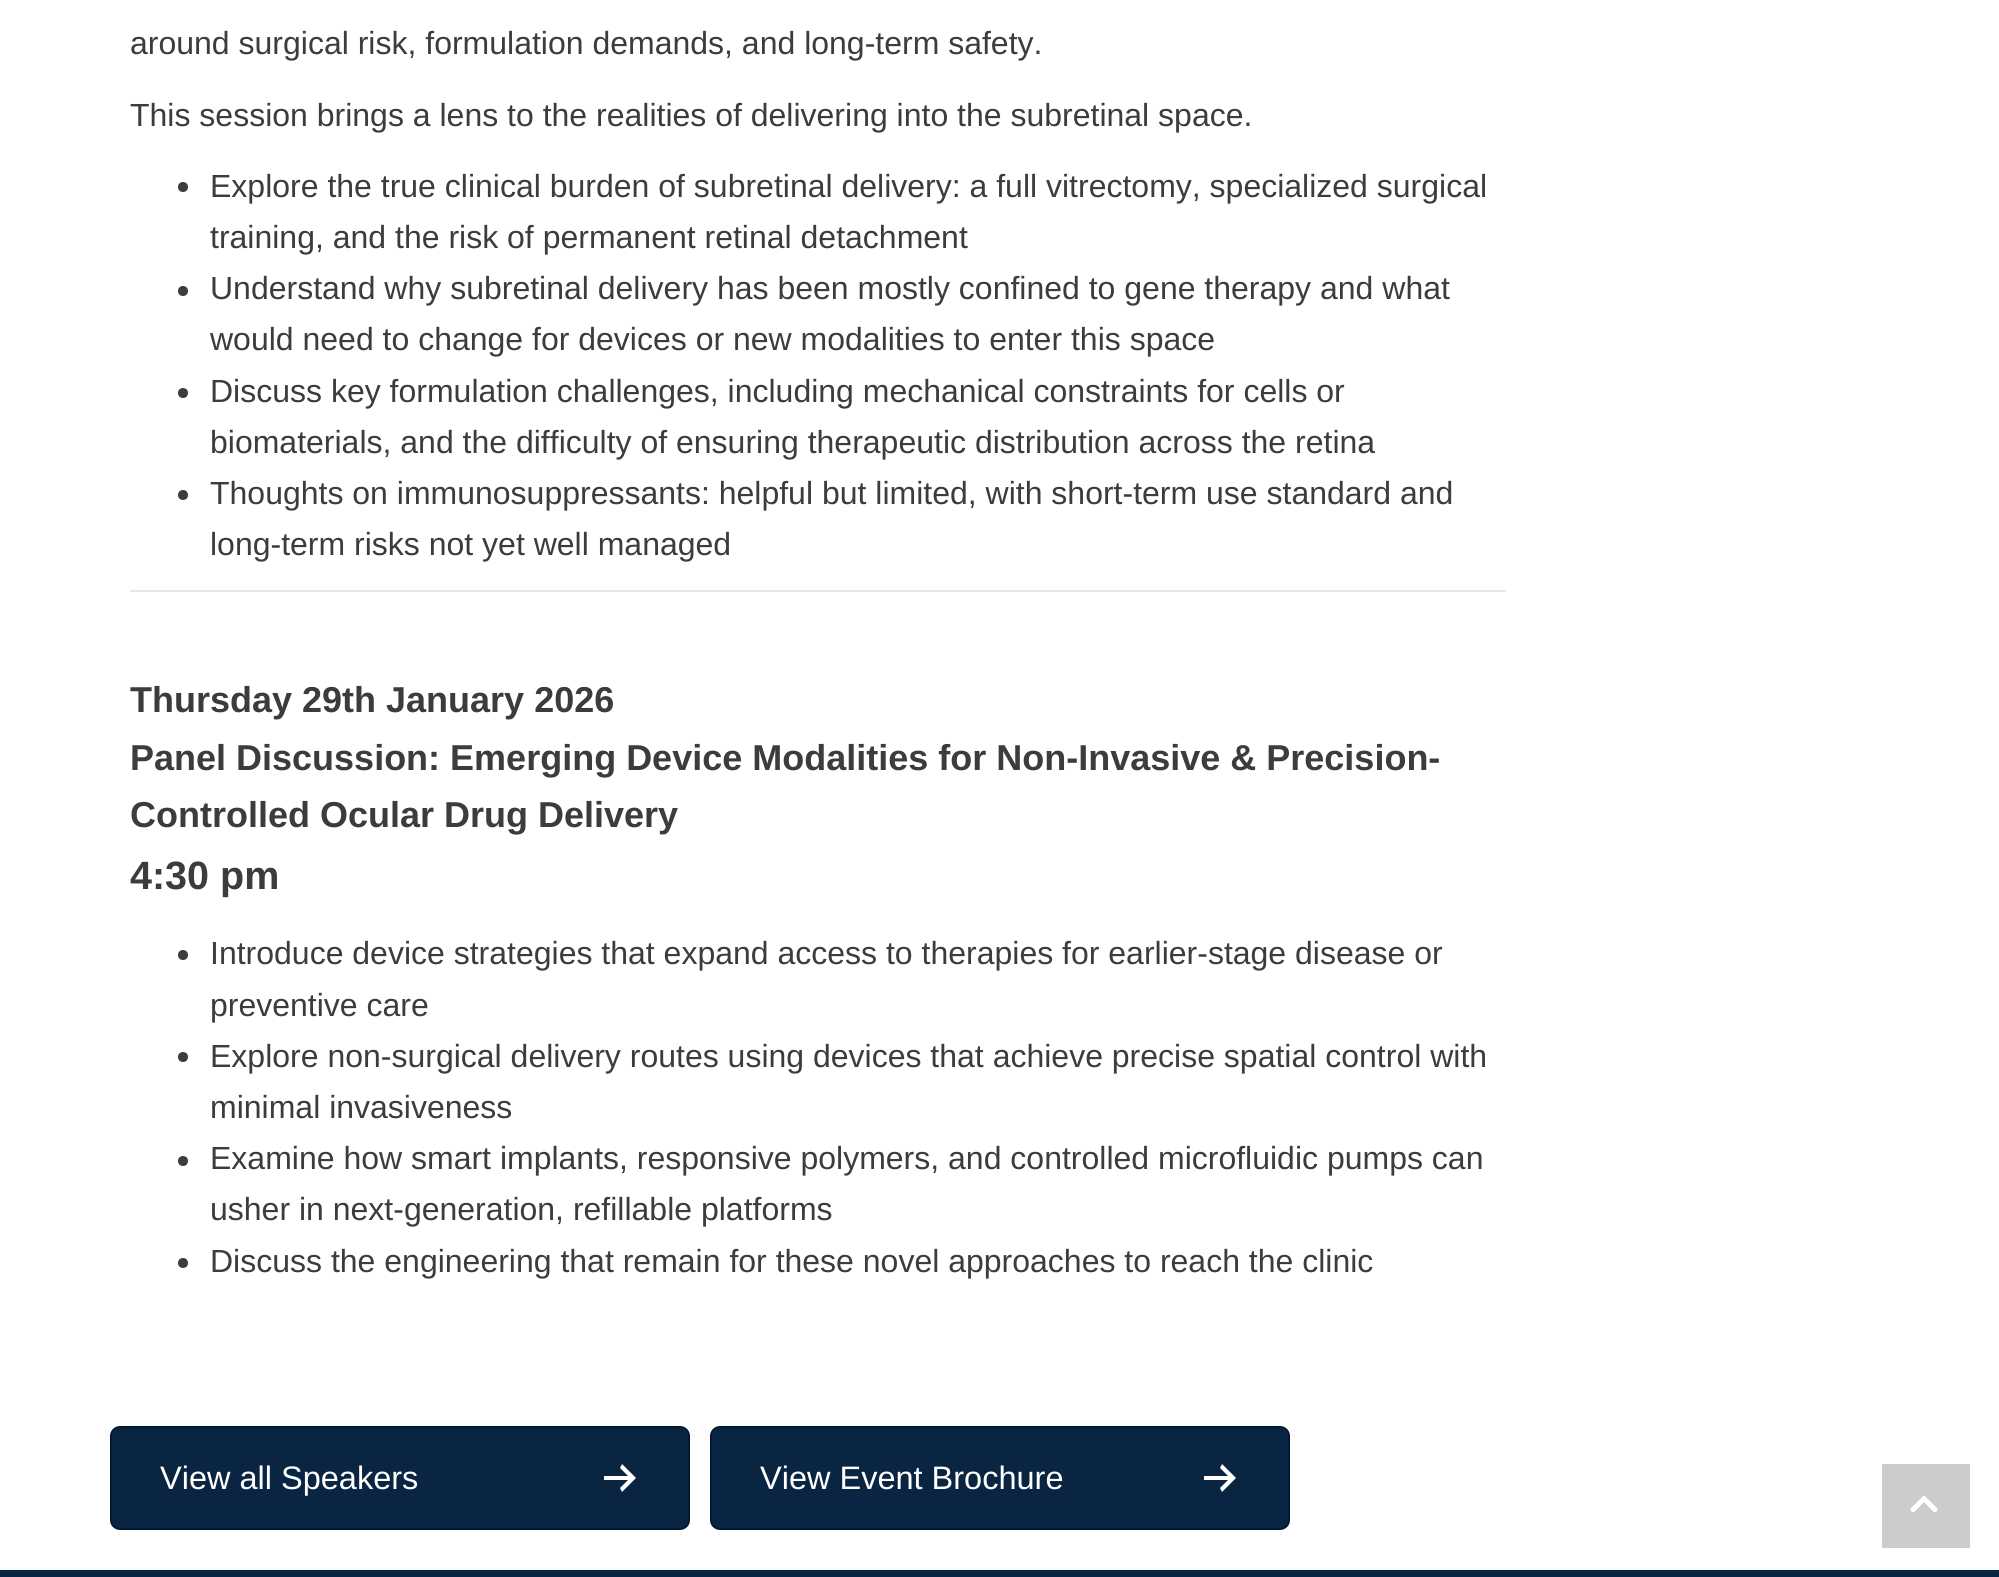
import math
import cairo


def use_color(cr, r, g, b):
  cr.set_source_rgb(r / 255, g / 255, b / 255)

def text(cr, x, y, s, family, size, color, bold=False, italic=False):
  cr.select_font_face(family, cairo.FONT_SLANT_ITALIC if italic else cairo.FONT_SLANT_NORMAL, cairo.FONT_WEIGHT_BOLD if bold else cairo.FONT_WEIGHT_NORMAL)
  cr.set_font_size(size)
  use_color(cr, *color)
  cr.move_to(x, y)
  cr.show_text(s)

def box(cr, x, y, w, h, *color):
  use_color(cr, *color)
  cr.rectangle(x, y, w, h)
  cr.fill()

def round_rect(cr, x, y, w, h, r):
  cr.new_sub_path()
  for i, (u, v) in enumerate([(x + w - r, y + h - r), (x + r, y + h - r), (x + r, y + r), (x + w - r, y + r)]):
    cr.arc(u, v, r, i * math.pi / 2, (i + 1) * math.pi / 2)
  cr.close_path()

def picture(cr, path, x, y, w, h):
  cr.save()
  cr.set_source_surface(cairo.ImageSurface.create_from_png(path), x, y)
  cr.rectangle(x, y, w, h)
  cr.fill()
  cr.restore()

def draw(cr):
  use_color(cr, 255, 255, 255)
  cr.paint()
  box(cr, 130, 590, 1376, 2, 230, 230, 230)
  use_color(cr, 60, 60, 59)
  cr.arc(183, 187, 5, 0, 2 * math.pi)
  cr.fill()
  cr.arc(183, 291, 5, 0, 2 * math.pi)
  cr.fill()
  cr.arc(183, 393, 5, 0, 2 * math.pi)
  cr.fill()
  cr.arc(183, 495, 5, 0, 2 * math.pi)
  cr.fill()
  cr.arc(183, 955, 5, 0, 2 * math.pi)
  cr.fill()
  cr.arc(183, 1057, 5, 0, 2 * math.pi)
  cr.fill()
  cr.arc(183, 1161, 5, 0, 2 * math.pi)
  cr.fill()
  cr.arc(183, 1263, 5, 0, 2 * math.pi)
  cr.fill()
  use_color(cr, 10, 37, 66)
  round_rect(cr, 111, 1427, 578, 102, 9)
  cr.fill_preserve()
  use_color(cr, 0, 25, 54)
  cr.stroke()
  use_color(cr, 255, 255, 255)
  cr.new_path()
  cr.move_to(604, 1480)
  cr.line_to(604, 1476)
  cr.line_to(628, 1476)
  cr.line_to(620, 1468)
  cr.line_to(622, 1464)
  cr.line_to(636, 1478)
  cr.line_to(622, 1492)
  cr.line_to(620, 1488)
  cr.line_to(628, 1480)
  cr.close_path()
  cr.fill()
  use_color(cr, 10, 37, 66)
  round_rect(cr, 711, 1427, 578, 102, 9)
  cr.fill_preserve()
  use_color(cr, 0, 25, 54)
  cr.stroke()
  use_color(cr, 255, 255, 255)
  cr.new_path()
  cr.move_to(1204, 1480)
  cr.line_to(1204, 1476)
  cr.line_to(1228, 1476)
  cr.line_to(1220, 1468)
  cr.line_to(1222, 1464)
  cr.line_to(1236, 1478)
  cr.line_to(1222, 1492)
  cr.line_to(1220, 1488)
  cr.line_to(1228, 1480)
  cr.close_path()
  cr.fill()
  box(cr, 0, 1570, 1999, 7, 10, 37, 66)
  box(cr, 1882, 1464, 88, 84, 204, 204, 204)
  picture(cr, "img_01.png", 1910, 1495, 28, 18)
  text(cr, 130, 54, "around surgical risk, formulation demands, and long-term safety.", "Liberation Sans", 32, (60, 60, 59))
  text(cr, 130, 126, "This session brings a lens to the realities of delivering into the subretinal space.", "Liberation Sans", 32, (60, 60, 59))
  text(cr, 210, 197, "Explore the true clinical burden of subretinal delivery: a full vitrectomy, specialized surgical", "Liberation Sans", 32, (60, 60, 59))
  text(cr, 210, 248, "training, and the risk of permanent retinal detachment", "Liberation Sans", 32, (60, 60, 59))
  text(cr, 210, 299, "Understand why subretinal delivery has been mostly confined to gene therapy and what", "Liberation Sans", 32, (60, 60, 59))
  text(cr, 210, 350, "would need to change for devices or new modalities to enter this space", "Liberation Sans", 32, (60, 60, 59))
  text(cr, 210, 402, "Discuss key formulation challenges, including mechanical constraints for cells or", "Liberation Sans", 32, (60, 60, 59))
  text(cr, 210, 453, "biomaterials, and the difficulty of ensuring therapeutic distribution across the retina", "Liberation Sans", 32, (60, 60, 59))
  text(cr, 210, 504, "Thoughts on immunosuppressants: helpful but limited, with short-term use standard and", "Liberation Sans", 32, (60, 60, 59))
  text(cr, 210, 555, "long-term risks not yet well managed", "Liberation Sans", 32, (60, 60, 59))
  text(cr, 130, 712, "Thursday 29th January 2026", "Liberation Sans", 36, (60, 60, 59), bold=True)
  text(cr, 130, 770, "Panel Discussion: Emerging Device Modalities for Non-Invasive & Precision-", "Liberation Sans", 36, (60, 60, 59), bold=True)
  text(cr, 130, 827, "Controlled Ocular Drug Delivery", "Liberation Sans", 36, (60, 60, 59), bold=True)
  text(cr, 130, 889, "4:30 pm", "Liberation Sans", 39.5, (60, 60, 59), bold=True)
  text(cr, 210, 964, "Introduce device strategies that expand access to therapies for earlier-stage disease or", "Liberation Sans", 32, (60, 60, 59))
  text(cr, 210, 1016, "preventive care", "Liberation Sans", 32, (60, 60, 59))
  text(cr, 210, 1067, "Explore non-surgical delivery routes using devices that achieve precise spatial control with", "Liberation Sans", 32, (60, 60, 59))
  text(cr, 210, 1118, "minimal invasiveness", "Liberation Sans", 32, (60, 60, 59))
  text(cr, 210, 1169, "Examine how smart implants, responsive polymers, and controlled microfluidic pumps can", "Liberation Sans", 32, (60, 60, 59))
  text(cr, 210, 1220, "usher in next-generation, refillable platforms", "Liberation Sans", 32, (60, 60, 59))
  text(cr, 210, 1272, "Discuss the engineering that remain for these novel approaches to reach the clinic", "Liberation Sans", 32, (60, 60, 59))
  text(cr, 160, 1489, "View all Speakers", "Liberation Sans", 32.5, (255, 255, 255))
  text(cr, 760, 1489, "View Event Brochure", "Liberation Sans", 32.5, (255, 255, 255))


surface = cairo.ImageSurface(cairo.FORMAT_RGB24, 1999, 1577)
cr = cairo.Context(surface)
options = cairo.FontOptions()
options.set_hint_metrics(cairo.HINT_METRICS_OFF)
options.set_hint_style(cairo.HINT_STYLE_NONE)
cr.set_font_options(options)
cr.set_miter_limit(4)
draw(cr)
surface.write_to_png("out.png")
